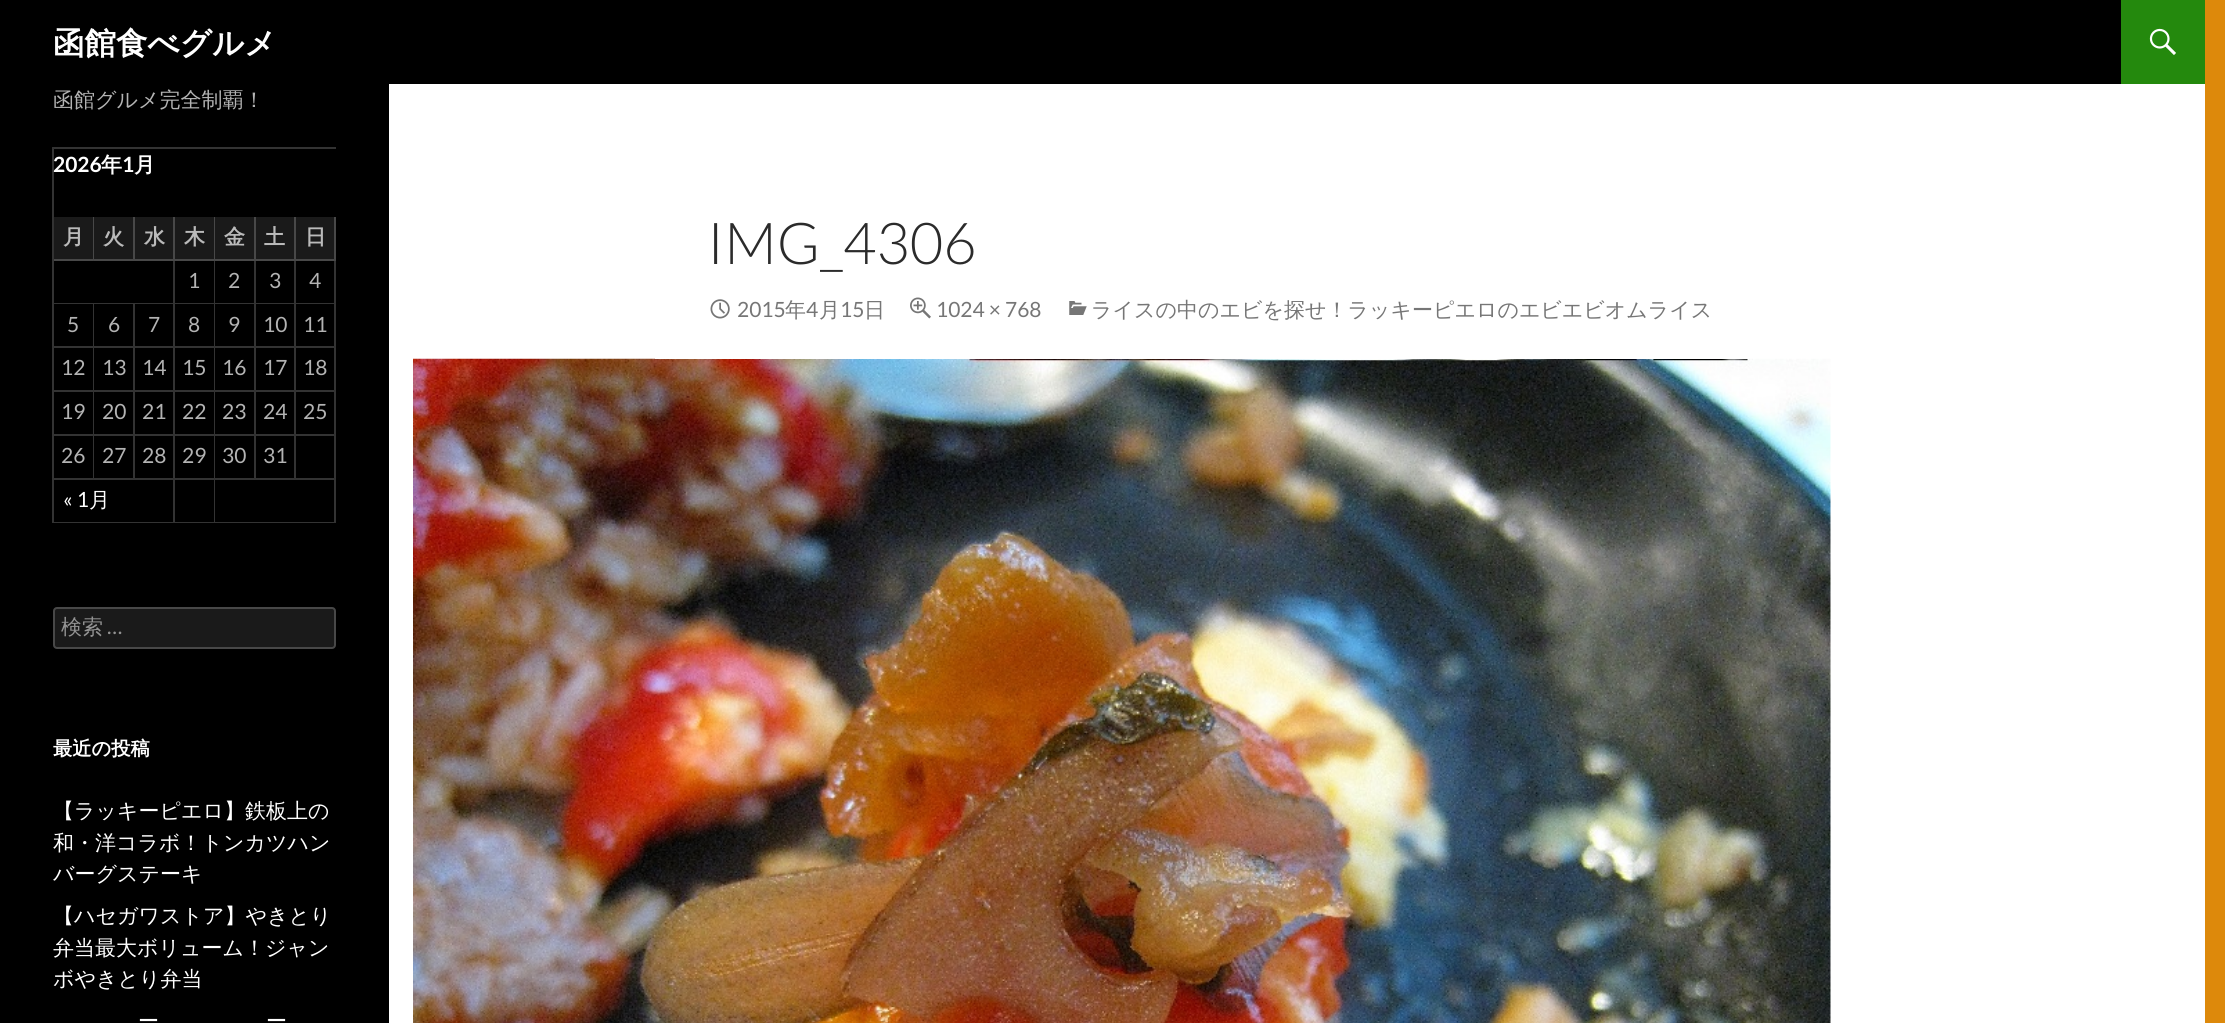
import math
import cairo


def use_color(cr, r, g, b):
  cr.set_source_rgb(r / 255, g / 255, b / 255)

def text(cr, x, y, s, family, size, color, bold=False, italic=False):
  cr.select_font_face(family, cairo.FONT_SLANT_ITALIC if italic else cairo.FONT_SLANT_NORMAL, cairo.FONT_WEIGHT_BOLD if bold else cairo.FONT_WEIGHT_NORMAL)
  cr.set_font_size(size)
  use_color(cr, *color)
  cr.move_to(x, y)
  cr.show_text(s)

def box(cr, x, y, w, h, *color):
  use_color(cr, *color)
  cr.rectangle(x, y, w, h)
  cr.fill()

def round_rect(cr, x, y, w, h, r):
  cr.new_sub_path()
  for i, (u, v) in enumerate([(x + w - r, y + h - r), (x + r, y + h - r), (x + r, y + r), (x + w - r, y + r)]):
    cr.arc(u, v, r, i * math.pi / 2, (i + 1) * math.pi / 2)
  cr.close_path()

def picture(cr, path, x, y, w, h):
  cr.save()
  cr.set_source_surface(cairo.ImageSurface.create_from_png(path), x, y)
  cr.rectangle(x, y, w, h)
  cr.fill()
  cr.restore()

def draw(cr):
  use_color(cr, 221, 137, 11)
  cr.paint()
  box(cr, 389, 84, 1816, 939, 255, 255, 255)
  box(cr, 0, 0, 2121, 84, 0, 0, 0)
  box(cr, 2121, 0, 84, 84, 36, 137, 13)
  picture(cr, "img_01.png", 2149, 28, 27, 27)
  box(cr, 0, 84, 389, 939, 0, 0, 0)
  use_color(cr, 51, 51, 51)
  cr.new_path()
  cr.move_to(52, 147)
  cr.line_to(336, 147)
  cr.line_to(336, 149)
  cr.line_to(54, 149)
  cr.close_path()
  cr.fill()
  cr.set_source_rgba(1, 1, 1, 0.2)
  cr.new_path()
  cr.move_to(52, 523)
  cr.line_to(52, 147)
  cr.line_to(54, 149)
  cr.line_to(54, 523)
  cr.close_path()
  cr.fill()
  box(cr, 54, 217, 282, 44, 26, 26, 26)
  use_color(cr, 72, 72, 72)
  cr.new_path()
  cr.move_to(94, 217)
  cr.line_to(94, 261)
  cr.line_to(93, 259)
  cr.line_to(93, 217)
  cr.close_path()
  cr.fill()
  cr.set_source_rgba(1, 1, 1, 0.2)
  cr.new_path()
  cr.move_to(94, 261)
  cr.line_to(54, 261)
  cr.line_to(54, 259)
  cr.line_to(93, 259)
  cr.close_path()
  cr.fill()
  use_color(cr, 72, 72, 72)
  cr.new_path()
  cr.move_to(135, 217)
  cr.line_to(135, 261)
  cr.line_to(133, 259)
  cr.line_to(133, 217)
  cr.close_path()
  cr.fill()
  cr.set_source_rgba(1, 1, 1, 0.2)
  cr.new_path()
  cr.move_to(135, 261)
  cr.line_to(94, 261)
  cr.line_to(94, 259)
  cr.line_to(133, 259)
  cr.close_path()
  cr.fill()
  use_color(cr, 72, 72, 72)
  cr.new_path()
  cr.move_to(175, 217)
  cr.line_to(175, 261)
  cr.line_to(173, 259)
  cr.line_to(173, 217)
  cr.close_path()
  cr.fill()
  cr.set_source_rgba(1, 1, 1, 0.2)
  cr.new_path()
  cr.move_to(175, 261)
  cr.line_to(135, 261)
  cr.line_to(135, 259)
  cr.line_to(173, 259)
  cr.close_path()
  cr.fill()
  use_color(cr, 72, 72, 72)
  cr.new_path()
  cr.move_to(215, 217)
  cr.line_to(215, 261)
  cr.line_to(214, 259)
  cr.line_to(214, 217)
  cr.close_path()
  cr.fill()
  cr.set_source_rgba(1, 1, 1, 0.2)
  cr.new_path()
  cr.move_to(215, 261)
  cr.line_to(175, 261)
  cr.line_to(175, 259)
  cr.line_to(214, 259)
  cr.close_path()
  cr.fill()
  use_color(cr, 72, 72, 72)
  cr.new_path()
  cr.move_to(256, 217)
  cr.line_to(256, 261)
  cr.line_to(254, 259)
  cr.line_to(254, 217)
  cr.close_path()
  cr.fill()
  cr.set_source_rgba(1, 1, 1, 0.2)
  cr.new_path()
  cr.move_to(256, 261)
  cr.line_to(215, 261)
  cr.line_to(215, 259)
  cr.line_to(254, 259)
  cr.close_path()
  cr.fill()
  use_color(cr, 72, 72, 72)
  cr.new_path()
  cr.move_to(296, 217)
  cr.line_to(296, 261)
  cr.line_to(294, 259)
  cr.line_to(294, 217)
  cr.close_path()
  cr.fill()
  cr.set_source_rgba(1, 1, 1, 0.2)
  cr.new_path()
  cr.move_to(296, 261)
  cr.line_to(256, 261)
  cr.line_to(256, 259)
  cr.line_to(294, 259)
  cr.close_path()
  cr.fill()
  use_color(cr, 72, 72, 72)
  cr.new_path()
  cr.move_to(336, 217)
  cr.line_to(336, 261)
  cr.line_to(334, 259)
  cr.line_to(334, 217)
  cr.close_path()
  cr.fill()
  cr.set_source_rgba(1, 1, 1, 0.2)
  cr.new_path()
  cr.move_to(336, 261)
  cr.line_to(296, 261)
  cr.line_to(296, 259)
  cr.line_to(334, 259)
  cr.close_path()
  cr.fill()
  use_color(cr, 51, 51, 51)
  cr.new_path()
  cr.move_to(175, 261)
  cr.line_to(175, 304)
  cr.line_to(173, 303)
  cr.line_to(173, 261)
  cr.close_path()
  cr.fill()
  cr.set_source_rgba(1, 1, 1, 0.2)
  cr.new_path()
  cr.move_to(175, 304)
  cr.line_to(54, 304)
  cr.line_to(54, 303)
  cr.line_to(173, 303)
  cr.close_path()
  cr.fill()
  use_color(cr, 51, 51, 51)
  cr.new_path()
  cr.move_to(215, 261)
  cr.line_to(215, 304)
  cr.line_to(214, 303)
  cr.line_to(214, 261)
  cr.close_path()
  cr.fill()
  cr.set_source_rgba(1, 1, 1, 0.2)
  cr.new_path()
  cr.move_to(215, 304)
  cr.line_to(175, 304)
  cr.line_to(175, 303)
  cr.line_to(214, 303)
  cr.close_path()
  cr.fill()
  use_color(cr, 51, 51, 51)
  cr.new_path()
  cr.move_to(256, 261)
  cr.line_to(256, 304)
  cr.line_to(254, 303)
  cr.line_to(254, 261)
  cr.close_path()
  cr.fill()
  cr.set_source_rgba(1, 1, 1, 0.2)
  cr.new_path()
  cr.move_to(256, 304)
  cr.line_to(215, 304)
  cr.line_to(215, 303)
  cr.line_to(254, 303)
  cr.close_path()
  cr.fill()
  use_color(cr, 51, 51, 51)
  cr.new_path()
  cr.move_to(296, 261)
  cr.line_to(296, 304)
  cr.line_to(294, 303)
  cr.line_to(294, 261)
  cr.close_path()
  cr.fill()
  cr.set_source_rgba(1, 1, 1, 0.2)
  cr.new_path()
  cr.move_to(296, 304)
  cr.line_to(256, 304)
  cr.line_to(256, 303)
  cr.line_to(294, 303)
  cr.close_path()
  cr.fill()
  use_color(cr, 51, 51, 51)
  cr.new_path()
  cr.move_to(336, 261)
  cr.line_to(336, 304)
  cr.line_to(334, 303)
  cr.line_to(334, 261)
  cr.close_path()
  cr.fill()
  cr.set_source_rgba(1, 1, 1, 0.2)
  cr.new_path()
  cr.move_to(336, 304)
  cr.line_to(296, 304)
  cr.line_to(296, 303)
  cr.line_to(334, 303)
  cr.close_path()
  cr.fill()
  use_color(cr, 51, 51, 51)
  cr.new_path()
  cr.move_to(94, 304)
  cr.line_to(94, 348)
  cr.line_to(93, 346)
  cr.line_to(93, 304)
  cr.close_path()
  cr.fill()
  cr.set_source_rgba(1, 1, 1, 0.2)
  cr.new_path()
  cr.move_to(94, 348)
  cr.line_to(54, 348)
  cr.line_to(54, 346)
  cr.line_to(93, 346)
  cr.close_path()
  cr.fill()
  use_color(cr, 51, 51, 51)
  cr.new_path()
  cr.move_to(135, 304)
  cr.line_to(135, 348)
  cr.line_to(133, 346)
  cr.line_to(133, 304)
  cr.close_path()
  cr.fill()
  cr.set_source_rgba(1, 1, 1, 0.2)
  cr.new_path()
  cr.move_to(135, 348)
  cr.line_to(94, 348)
  cr.line_to(94, 346)
  cr.line_to(133, 346)
  cr.close_path()
  cr.fill()
  use_color(cr, 51, 51, 51)
  cr.new_path()
  cr.move_to(175, 304)
  cr.line_to(175, 348)
  cr.line_to(173, 346)
  cr.line_to(173, 304)
  cr.close_path()
  cr.fill()
  cr.set_source_rgba(1, 1, 1, 0.2)
  cr.new_path()
  cr.move_to(175, 348)
  cr.line_to(135, 348)
  cr.line_to(135, 346)
  cr.line_to(173, 346)
  cr.close_path()
  cr.fill()
  use_color(cr, 51, 51, 51)
  cr.new_path()
  cr.move_to(215, 304)
  cr.line_to(215, 348)
  cr.line_to(214, 346)
  cr.line_to(214, 304)
  cr.close_path()
  cr.fill()
  cr.set_source_rgba(1, 1, 1, 0.2)
  cr.new_path()
  cr.move_to(215, 348)
  cr.line_to(175, 348)
  cr.line_to(175, 346)
  cr.line_to(214, 346)
  cr.close_path()
  cr.fill()
  use_color(cr, 51, 51, 51)
  cr.new_path()
  cr.move_to(256, 304)
  cr.line_to(256, 348)
  cr.line_to(254, 346)
  cr.line_to(254, 304)
  cr.close_path()
  cr.fill()
  cr.set_source_rgba(1, 1, 1, 0.2)
  cr.new_path()
  cr.move_to(256, 348)
  cr.line_to(215, 348)
  cr.line_to(215, 346)
  cr.line_to(254, 346)
  cr.close_path()
  cr.fill()
  use_color(cr, 51, 51, 51)
  cr.new_path()
  cr.move_to(296, 304)
  cr.line_to(296, 348)
  cr.line_to(294, 346)
  cr.line_to(294, 304)
  cr.close_path()
  cr.fill()
  cr.set_source_rgba(1, 1, 1, 0.2)
  cr.new_path()
  cr.move_to(296, 348)
  cr.line_to(256, 348)
  cr.line_to(256, 346)
  cr.line_to(294, 346)
  cr.close_path()
  cr.fill()
  use_color(cr, 51, 51, 51)
  cr.new_path()
  cr.move_to(336, 304)
  cr.line_to(336, 348)
  cr.line_to(334, 346)
  cr.line_to(334, 304)
  cr.close_path()
  cr.fill()
  cr.set_source_rgba(1, 1, 1, 0.2)
  cr.new_path()
  cr.move_to(336, 348)
  cr.line_to(296, 348)
  cr.line_to(296, 346)
  cr.line_to(334, 346)
  cr.close_path()
  cr.fill()
  use_color(cr, 51, 51, 51)
  cr.new_path()
  cr.move_to(94, 348)
  cr.line_to(94, 392)
  cr.line_to(93, 390)
  cr.line_to(93, 348)
  cr.close_path()
  cr.fill()
  cr.set_source_rgba(1, 1, 1, 0.2)
  cr.new_path()
  cr.move_to(94, 392)
  cr.line_to(54, 392)
  cr.line_to(54, 390)
  cr.line_to(93, 390)
  cr.close_path()
  cr.fill()
  use_color(cr, 51, 51, 51)
  cr.new_path()
  cr.move_to(135, 348)
  cr.line_to(135, 392)
  cr.line_to(133, 390)
  cr.line_to(133, 348)
  cr.close_path()
  cr.fill()
  cr.set_source_rgba(1, 1, 1, 0.2)
  cr.new_path()
  cr.move_to(135, 392)
  cr.line_to(94, 392)
  cr.line_to(94, 390)
  cr.line_to(133, 390)
  cr.close_path()
  cr.fill()
  use_color(cr, 51, 51, 51)
  cr.new_path()
  cr.move_to(175, 348)
  cr.line_to(175, 392)
  cr.line_to(173, 390)
  cr.line_to(173, 348)
  cr.close_path()
  cr.fill()
  cr.set_source_rgba(1, 1, 1, 0.2)
  cr.new_path()
  cr.move_to(175, 392)
  cr.line_to(135, 392)
  cr.line_to(135, 390)
  cr.line_to(173, 390)
  cr.close_path()
  cr.fill()
  use_color(cr, 51, 51, 51)
  cr.new_path()
  cr.move_to(215, 348)
  cr.line_to(215, 392)
  cr.line_to(214, 390)
  cr.line_to(214, 348)
  cr.close_path()
  cr.fill()
  cr.set_source_rgba(1, 1, 1, 0.2)
  cr.new_path()
  cr.move_to(215, 392)
  cr.line_to(175, 392)
  cr.line_to(175, 390)
  cr.line_to(214, 390)
  cr.close_path()
  cr.fill()
  use_color(cr, 51, 51, 51)
  cr.new_path()
  cr.move_to(256, 348)
  cr.line_to(256, 392)
  cr.line_to(254, 390)
  cr.line_to(254, 348)
  cr.close_path()
  cr.fill()
  cr.set_source_rgba(1, 1, 1, 0.2)
  cr.new_path()
  cr.move_to(256, 392)
  cr.line_to(215, 392)
  cr.line_to(215, 390)
  cr.line_to(254, 390)
  cr.close_path()
  cr.fill()
  use_color(cr, 51, 51, 51)
  cr.new_path()
  cr.move_to(296, 348)
  cr.line_to(296, 392)
  cr.line_to(294, 390)
  cr.line_to(294, 348)
  cr.close_path()
  cr.fill()
  cr.set_source_rgba(1, 1, 1, 0.2)
  cr.new_path()
  cr.move_to(296, 392)
  cr.line_to(256, 392)
  cr.line_to(256, 390)
  cr.line_to(294, 390)
  cr.close_path()
  cr.fill()
  use_color(cr, 51, 51, 51)
  cr.new_path()
  cr.move_to(336, 348)
  cr.line_to(336, 392)
  cr.line_to(334, 390)
  cr.line_to(334, 348)
  cr.close_path()
  cr.fill()
  cr.set_source_rgba(1, 1, 1, 0.2)
  cr.new_path()
  cr.move_to(336, 392)
  cr.line_to(296, 392)
  cr.line_to(296, 390)
  cr.line_to(334, 390)
  cr.close_path()
  cr.fill()
  use_color(cr, 51, 51, 51)
  cr.new_path()
  cr.move_to(94, 392)
  cr.line_to(94, 436)
  cr.line_to(93, 434)
  cr.line_to(93, 392)
  cr.close_path()
  cr.fill()
  cr.set_source_rgba(1, 1, 1, 0.2)
  cr.new_path()
  cr.move_to(94, 436)
  cr.line_to(54, 436)
  cr.line_to(54, 434)
  cr.line_to(93, 434)
  cr.close_path()
  cr.fill()
  use_color(cr, 51, 51, 51)
  cr.new_path()
  cr.move_to(135, 392)
  cr.line_to(135, 436)
  cr.line_to(133, 434)
  cr.line_to(133, 392)
  cr.close_path()
  cr.fill()
  cr.set_source_rgba(1, 1, 1, 0.2)
  cr.new_path()
  cr.move_to(135, 436)
  cr.line_to(94, 436)
  cr.line_to(94, 434)
  cr.line_to(133, 434)
  cr.close_path()
  cr.fill()
  use_color(cr, 51, 51, 51)
  cr.new_path()
  cr.move_to(175, 392)
  cr.line_to(175, 436)
  cr.line_to(173, 434)
  cr.line_to(173, 392)
  cr.close_path()
  cr.fill()
  cr.set_source_rgba(1, 1, 1, 0.2)
  cr.new_path()
  cr.move_to(175, 436)
  cr.line_to(135, 436)
  cr.line_to(135, 434)
  cr.line_to(173, 434)
  cr.close_path()
  cr.fill()
  use_color(cr, 51, 51, 51)
  cr.new_path()
  cr.move_to(215, 392)
  cr.line_to(215, 436)
  cr.line_to(214, 434)
  cr.line_to(214, 392)
  cr.close_path()
  cr.fill()
  cr.set_source_rgba(1, 1, 1, 0.2)
  cr.new_path()
  cr.move_to(215, 436)
  cr.line_to(175, 436)
  cr.line_to(175, 434)
  cr.line_to(214, 434)
  cr.close_path()
  cr.fill()
  use_color(cr, 51, 51, 51)
  cr.new_path()
  cr.move_to(256, 392)
  cr.line_to(256, 436)
  cr.line_to(254, 434)
  cr.line_to(254, 392)
  cr.close_path()
  cr.fill()
  cr.set_source_rgba(1, 1, 1, 0.2)
  cr.new_path()
  cr.move_to(256, 436)
  cr.line_to(215, 436)
  cr.line_to(215, 434)
  cr.line_to(254, 434)
  cr.close_path()
  cr.fill()
  use_color(cr, 51, 51, 51)
  cr.new_path()
  cr.move_to(296, 392)
  cr.line_to(296, 436)
  cr.line_to(294, 434)
  cr.line_to(294, 392)
  cr.close_path()
  cr.fill()
  cr.set_source_rgba(1, 1, 1, 0.2)
  cr.new_path()
  cr.move_to(296, 436)
  cr.line_to(256, 436)
  cr.line_to(256, 434)
  cr.line_to(294, 434)
  cr.close_path()
  cr.fill()
  use_color(cr, 51, 51, 51)
  cr.new_path()
  cr.move_to(336, 392)
  cr.line_to(336, 436)
  cr.line_to(334, 434)
  cr.line_to(334, 392)
  cr.close_path()
  cr.fill()
  cr.set_source_rgba(1, 1, 1, 0.2)
  cr.new_path()
  cr.move_to(336, 436)
  cr.line_to(296, 436)
  cr.line_to(296, 434)
  cr.line_to(334, 434)
  cr.close_path()
  cr.fill()
  use_color(cr, 51, 51, 51)
  cr.new_path()
  cr.move_to(94, 436)
  cr.line_to(94, 480)
  cr.line_to(93, 478)
  cr.line_to(93, 436)
  cr.close_path()
  cr.fill()
  cr.set_source_rgba(1, 1, 1, 0.2)
  cr.new_path()
  cr.move_to(94, 480)
  cr.line_to(54, 480)
  cr.line_to(54, 478)
  cr.line_to(93, 478)
  cr.close_path()
  cr.fill()
  use_color(cr, 51, 51, 51)
  cr.new_path()
  cr.move_to(135, 436)
  cr.line_to(135, 480)
  cr.line_to(133, 478)
  cr.line_to(133, 436)
  cr.close_path()
  cr.fill()
  cr.set_source_rgba(1, 1, 1, 0.2)
  cr.new_path()
  cr.move_to(135, 480)
  cr.line_to(94, 480)
  cr.line_to(94, 478)
  cr.line_to(133, 478)
  cr.close_path()
  cr.fill()
  use_color(cr, 51, 51, 51)
  cr.new_path()
  cr.move_to(175, 436)
  cr.line_to(175, 480)
  cr.line_to(173, 478)
  cr.line_to(173, 436)
  cr.close_path()
  cr.fill()
  cr.set_source_rgba(1, 1, 1, 0.2)
  cr.new_path()
  cr.move_to(175, 480)
  cr.line_to(135, 480)
  cr.line_to(135, 478)
  cr.line_to(173, 478)
  cr.close_path()
  cr.fill()
  use_color(cr, 51, 51, 51)
  cr.new_path()
  cr.move_to(215, 436)
  cr.line_to(215, 480)
  cr.line_to(214, 478)
  cr.line_to(214, 436)
  cr.close_path()
  cr.fill()
  cr.set_source_rgba(1, 1, 1, 0.2)
  cr.new_path()
  cr.move_to(215, 480)
  cr.line_to(175, 480)
  cr.line_to(175, 478)
  cr.line_to(214, 478)
  cr.close_path()
  cr.fill()
  use_color(cr, 51, 51, 51)
  cr.new_path()
  cr.move_to(256, 436)
  cr.line_to(256, 480)
  cr.line_to(254, 478)
  cr.line_to(254, 436)
  cr.close_path()
  cr.fill()
  cr.set_source_rgba(1, 1, 1, 0.2)
  cr.new_path()
  cr.move_to(256, 480)
  cr.line_to(215, 480)
  cr.line_to(215, 478)
  cr.line_to(254, 478)
  cr.close_path()
  cr.fill()
  use_color(cr, 51, 51, 51)
  cr.new_path()
  cr.move_to(296, 436)
  cr.line_to(296, 480)
  cr.line_to(294, 478)
  cr.line_to(294, 436)
  cr.close_path()
  cr.fill()
  cr.set_source_rgba(1, 1, 1, 0.2)
  cr.new_path()
  cr.move_to(296, 480)
  cr.line_to(256, 480)
  cr.line_to(256, 478)
  cr.line_to(294, 478)
  cr.close_path()
  cr.fill()
  use_color(cr, 51, 51, 51)
  cr.new_path()
  cr.move_to(336, 436)
  cr.line_to(336, 480)
  cr.line_to(334, 478)
  cr.line_to(334, 436)
  cr.close_path()
  cr.fill()
  cr.set_source_rgba(1, 1, 1, 0.2)
  cr.new_path()
  cr.move_to(336, 480)
  cr.line_to(296, 480)
  cr.line_to(296, 478)
  cr.line_to(334, 478)
  cr.close_path()
  cr.fill()
  use_color(cr, 51, 51, 51)
  cr.new_path()
  cr.move_to(175, 480)
  cr.line_to(175, 523)
  cr.line_to(173, 522)
  cr.line_to(173, 480)
  cr.close_path()
  cr.fill()
  cr.set_source_rgba(1, 1, 1, 0.2)
  cr.new_path()
  cr.move_to(175, 523)
  cr.line_to(54, 523)
  cr.line_to(54, 522)
  cr.line_to(173, 522)
  cr.close_path()
  cr.fill()
  use_color(cr, 51, 51, 51)
  cr.new_path()
  cr.move_to(215, 480)
  cr.line_to(215, 523)
  cr.line_to(214, 522)
  cr.line_to(214, 480)
  cr.close_path()
  cr.fill()
  cr.set_source_rgba(1, 1, 1, 0.2)
  cr.new_path()
  cr.move_to(215, 523)
  cr.line_to(175, 523)
  cr.line_to(175, 522)
  cr.line_to(214, 522)
  cr.close_path()
  cr.fill()
  use_color(cr, 51, 51, 51)
  cr.new_path()
  cr.move_to(336, 480)
  cr.line_to(336, 523)
  cr.line_to(334, 522)
  cr.line_to(334, 480)
  cr.close_path()
  cr.fill()
  cr.set_source_rgba(1, 1, 1, 0.2)
  cr.new_path()
  cr.move_to(336, 523)
  cr.line_to(215, 523)
  cr.line_to(215, 522)
  cr.line_to(334, 522)
  cr.close_path()
  cr.fill()
  use_color(cr, 26, 26, 26)
  round_rect(cr, 53, 607, 283, 42, 4)
  cr.fill()
  round_rect(cr, 54, 608, 281, 40, 3)
  cr.set_source_rgba(1, 1, 1, 0.2)
  cr.stroke()
  picture(cr, "img_05.png", 413, 358, 1418, 665)
  box(cr, 655, 358, 1093, 1, 255, 255, 255)
  picture(cr, "img_02.png", 710, 299, 20, 20)
  picture(cr, "img_03.png", 910, 297, 21, 22)
  picture(cr, "img_04.png", 1069, 301, 18, 14)
  text(cr, 53, 54, "函館食べグルメ", "WenQuanYi Zen Hei", 31.5, (255, 255, 255), bold=True)
  text(cr, 53, 107, "函館グルメ完全制覇！", "WenQuanYi Zen Hei Medium", 21, (179, 179, 179))
  text(cr, 53, 172, "2026", "Lato", 21, (255, 255, 255), bold=True)
  text(cr, 101, 172, "年", "WenQuanYi Zen Hei", 21, (255, 255, 255), bold=True)
  text(cr, 122, 172, "1", "Lato", 21, (255, 255, 255), bold=True)
  text(cr, 134, 172, "月", "WenQuanYi Zen Hei", 21, (255, 255, 255), bold=True)
  text(cr, 63, 244, "月", "WenQuanYi Zen Hei", 21, (186, 186, 186), bold=True)
  text(cr, 103, 244, "火", "WenQuanYi Zen Hei", 21, (186, 186, 186), bold=True)
  text(cr, 144, 244, "水", "WenQuanYi Zen Hei", 21, (186, 186, 186), bold=True)
  text(cr, 184, 244, "木", "WenQuanYi Zen Hei", 21, (186, 186, 186), bold=True)
  text(cr, 224, 244, "金", "WenQuanYi Zen Hei", 21, (186, 186, 186), bold=True)
  text(cr, 264, 244, "土", "WenQuanYi Zen Hei", 21, (186, 186, 186), bold=True)
  text(cr, 305, 244, "日", "WenQuanYi Zen Hei", 21, (186, 186, 186), bold=True)
  text(cr, 188, 288, "1", "Lato", 21, (179, 179, 179))
  text(cr, 228, 288, "2", "Lato", 21, (179, 179, 179))
  text(cr, 269, 288, "3", "Lato", 21, (179, 179, 179))
  text(cr, 309, 288, "4", "Lato", 21, (179, 179, 179))
  text(cr, 67, 332, "5", "Lato", 21, (179, 179, 179))
  text(cr, 108, 332, "6", "Lato", 21, (179, 179, 179))
  text(cr, 148, 332, "7", "Lato", 21, (179, 179, 179))
  text(cr, 188, 332, "8", "Lato", 21, (179, 179, 179))
  text(cr, 228, 332, "9", "Lato", 21, (179, 179, 179))
  text(cr, 263, 332, "10", "Lato", 21, (179, 179, 179))
  text(cr, 303, 332, "11", "Lato", 21, (179, 179, 179))
  text(cr, 61, 375, "12", "Lato", 21, (179, 179, 179))
  text(cr, 102, 375, "13", "Lato", 21, (179, 179, 179))
  text(cr, 142, 375, "14", "Lato", 21, (179, 179, 179))
  text(cr, 182, 375, "15", "Lato", 21, (179, 179, 179))
  text(cr, 222, 375, "16", "Lato", 21, (179, 179, 179))
  text(cr, 263, 375, "17", "Lato", 21, (179, 179, 179))
  text(cr, 303, 375, "18", "Lato", 21, (179, 179, 179))
  text(cr, 61, 419, "19", "Lato", 21, (179, 179, 179))
  text(cr, 102, 419, "20", "Lato", 21, (179, 179, 179))
  text(cr, 142, 419, "21", "Lato", 21, (179, 179, 179))
  text(cr, 182, 419, "22", "Lato", 21, (179, 179, 179))
  text(cr, 222, 419, "23", "Lato", 21, (179, 179, 179))
  text(cr, 263, 419, "24", "Lato", 21, (179, 179, 179))
  text(cr, 303, 419, "25", "Lato", 21, (179, 179, 179))
  text(cr, 61, 463, "26", "Lato", 21, (179, 179, 179))
  text(cr, 102, 463, "27", "Lato", 21, (179, 179, 179))
  text(cr, 142, 463, "28", "Lato", 21, (179, 179, 179))
  text(cr, 182, 463, "29", "Lato", 21, (179, 179, 179))
  text(cr, 222, 463, "30", "Lato", 21, (179, 179, 179))
  text(cr, 263, 463, "31", "Lato", 21, (179, 179, 179))
  text(cr, 63, 507, "« 1", "Lato", 21, (255, 255, 255))
  text(cr, 89, 507, "月", "WenQuanYi Zen Hei Medium", 21, (255, 255, 255))
  text(cr, 61, 634, "検索", "WenQuanYi Zen Hei Medium", 21, (147, 147, 147))
  text(cr, 107, 634, "…", "Lato", 21, (147, 147, 147))
  text(cr, 53, 755, "最近の投稿", "WenQuanYi Zen Hei", 19.25, (255, 255, 255), bold=True)
  text(cr, 53, 818, "【ラッキーピエロ】鉄板上の", "WenQuanYi Zen Hei Medium", 21, (255, 255, 255))
  text(cr, 53, 850, "和・洋コラボ！トンカツハン", "WenQuanYi Zen Hei Medium", 21, (255, 255, 255))
  text(cr, 53, 881, "バーグステーキ", "WenQuanYi Zen Hei Medium", 21, (255, 255, 255))
  text(cr, 53, 923, "【ハセガワストア】やきとり", "WenQuanYi Zen Hei Medium", 21, (255, 255, 255))
  text(cr, 53, 955, "弁当最大ボリューム！ジャン", "WenQuanYi Zen Hei Medium", 21, (255, 255, 255))
  text(cr, 53, 986, "ボやきとり弁当", "WenQuanYi Zen Hei Medium", 21, (255, 255, 255))
  text(cr, 138, 1028, "ー", "WenQuanYi Zen Hei Medium", 21, (255, 255, 255))
  text(cr, 266, 1028, "ー", "WenQuanYi Zen Hei Medium", 21, (255, 255, 255))
  text(cr, 707, 264, "IMG_4306", "Lato Light", 57.75, (43, 43, 43))
  text(cr, 737, 317, "2015", "Lato", 21, (118, 118, 118))
  text(cr, 785, 317, "年", "WenQuanYi Zen Hei Medium", 21, (118, 118, 118))
  text(cr, 806, 317, "4", "Lato", 21, (118, 118, 118))
  text(cr, 819, 317, "月", "WenQuanYi Zen Hei Medium", 21, (118, 118, 118))
  text(cr, 840, 317, "15", "Lato", 21, (118, 118, 118))
  text(cr, 864, 317, "日", "WenQuanYi Zen Hei Medium", 21, (118, 118, 118))
  text(cr, 936, 317, "1024 × 768", "Lato", 21, (118, 118, 118))
  text(cr, 1091, 317, "ライスの中のエビを探せ！ラッキーピエロのエビエビオムライス", "WenQuanYi Zen Hei Medium", 21, (118, 118, 118))


surface = cairo.ImageSurface(cairo.FORMAT_RGB24, 2225, 1023)
cr = cairo.Context(surface)
options = cairo.FontOptions()
options.set_hint_metrics(cairo.HINT_METRICS_OFF)
options.set_hint_style(cairo.HINT_STYLE_NONE)
cr.set_font_options(options)
cr.set_miter_limit(4)
draw(cr)
surface.write_to_png("out.png")
